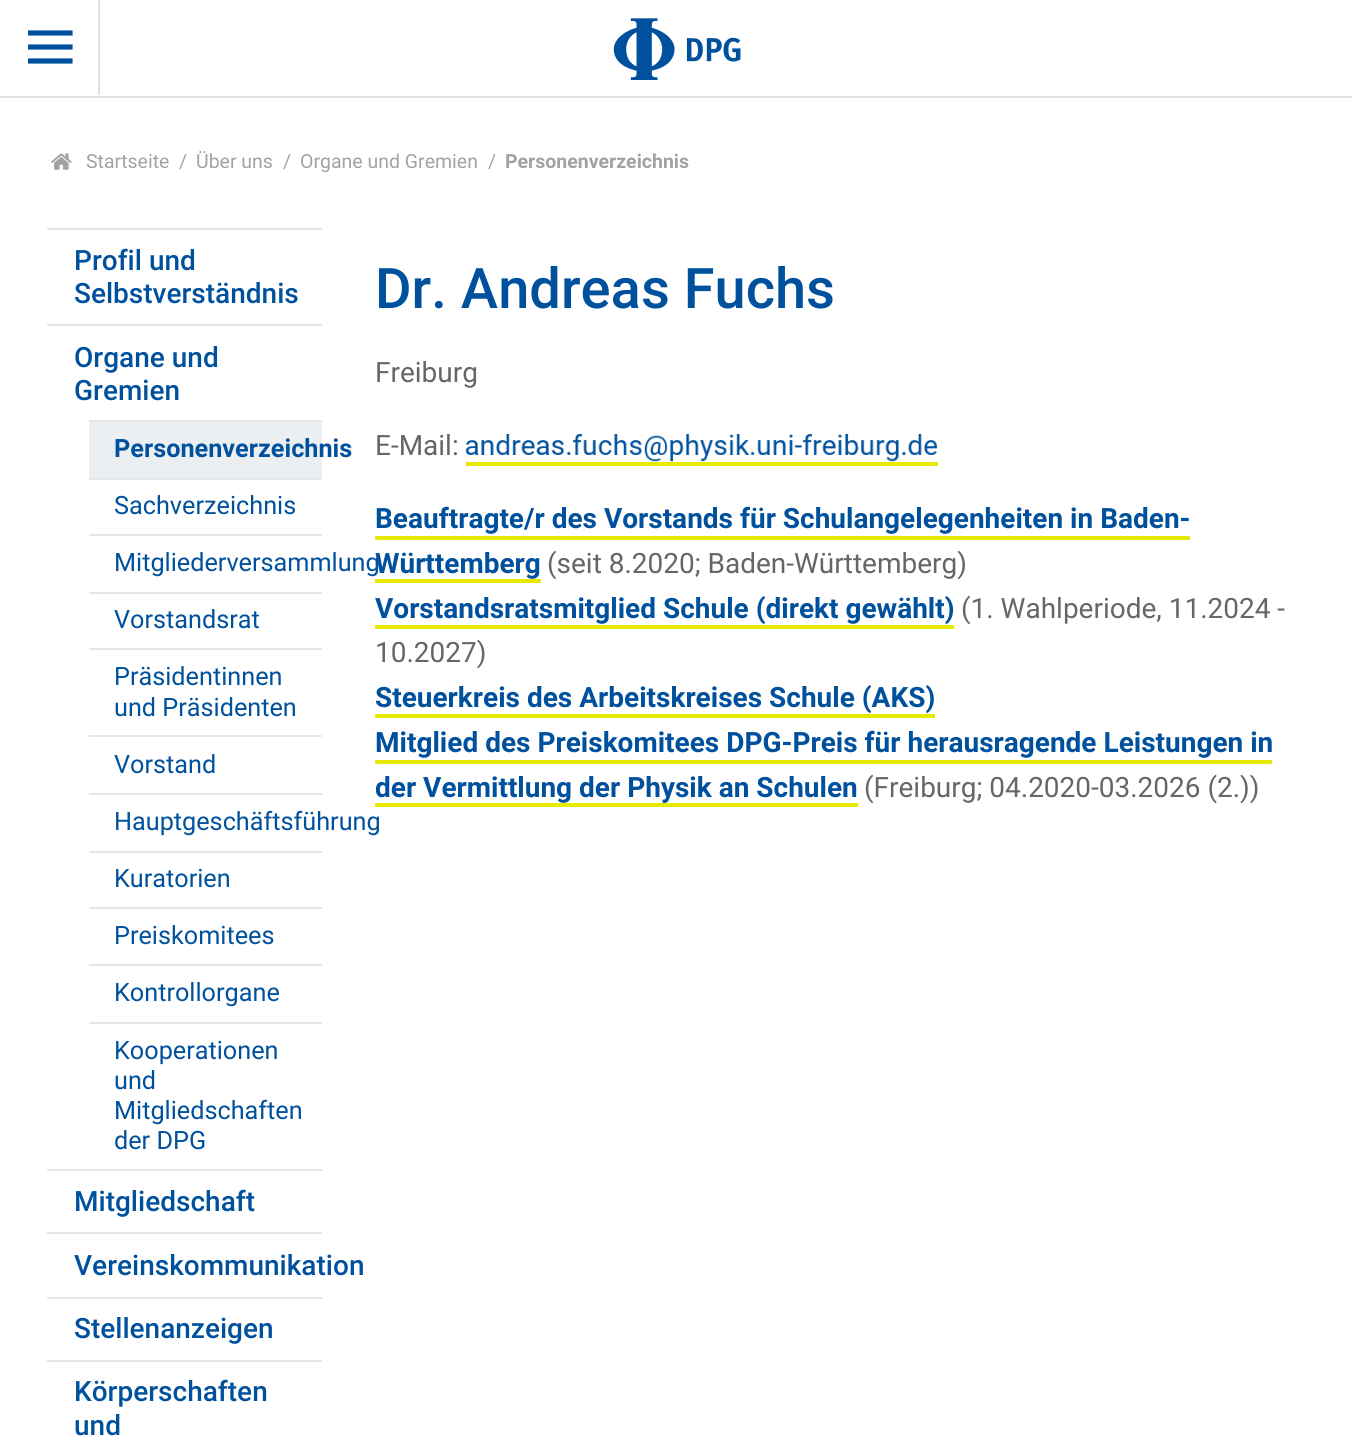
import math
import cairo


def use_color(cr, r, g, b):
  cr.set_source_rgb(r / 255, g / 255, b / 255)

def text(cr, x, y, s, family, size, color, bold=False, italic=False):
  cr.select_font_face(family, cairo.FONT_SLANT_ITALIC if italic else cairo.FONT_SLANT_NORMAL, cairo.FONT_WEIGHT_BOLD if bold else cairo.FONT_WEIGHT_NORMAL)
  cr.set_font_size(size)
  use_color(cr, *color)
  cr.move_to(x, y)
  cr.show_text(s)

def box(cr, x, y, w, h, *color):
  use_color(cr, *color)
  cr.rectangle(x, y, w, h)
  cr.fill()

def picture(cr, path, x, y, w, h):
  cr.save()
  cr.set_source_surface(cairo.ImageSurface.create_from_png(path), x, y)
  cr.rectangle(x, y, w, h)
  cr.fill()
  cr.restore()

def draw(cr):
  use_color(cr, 255, 255, 255)
  cr.paint()
  box(cr, 0, 96, 1352, 2, 223, 223, 223)
  box(cr, 98, 0, 2, 95, 223, 223, 223)
  cr.save()
  cr.rectangle(28, 25, 46, 45)
  cr.clip()
  cr.new_path()
  cr.move_to(30, 33)
  cr.line_to(70, 33)
  cr.move_to(30, 47)
  cr.line_to(70, 47)
  cr.move_to(30, 61)
  cr.line_to(70, 61)
  use_color(cr, 0, 81, 157)
  cr.set_line_width(5.2)
  cr.set_line_cap(cairo.LINE_CAP_SQUARE)
  cr.stroke()
  cr.restore()
  picture(cr, "img_01.png", 613, 18, 128, 62)
  picture(cr, "img_02.png", 51, 153, 21, 17)
  box(cr, 47, 228, 275, 2, 226, 231, 235)
  box(cr, 47, 324, 275, 2, 226, 231, 235)
  box(cr, 89, 422, 233, 56, 236, 239, 242)
  box(cr, 89, 420, 233, 2, 226, 231, 235)
  box(cr, 89, 478, 233, 2, 226, 231, 235)
  box(cr, 89, 534, 233, 2, 226, 231, 235)
  box(cr, 89, 592, 233, 2, 226, 231, 235)
  box(cr, 89, 648, 233, 2, 226, 231, 235)
  box(cr, 89, 735, 233, 2, 226, 231, 235)
  box(cr, 89, 793, 233, 2, 226, 231, 235)
  box(cr, 89, 851, 233, 2, 226, 231, 235)
  box(cr, 89, 907, 233, 2, 226, 231, 235)
  box(cr, 89, 964, 233, 2, 226, 231, 235)
  box(cr, 89, 1022, 233, 2, 226, 231, 235)
  box(cr, 47, 1169, 275, 2, 226, 231, 235)
  box(cr, 47, 1232, 275, 2, 226, 231, 235)
  box(cr, 47, 1297, 275, 2, 226, 231, 235)
  box(cr, 47, 1360, 275, 2, 226, 231, 235)
  picture(cr, "img_03.png", 465, 434, 473, 28)
  box(cr, 466, 462, 472, 4, 232, 233, 0)
  box(cr, 375, 536, 815, 4, 232, 233, 0)
  box(cr, 375, 579, 166, 4, 232, 233, 0)
  box(cr, 375, 625, 579, 4, 232, 233, 0)
  box(cr, 375, 714, 560, 4, 232, 233, 0)
  box(cr, 375, 760, 897, 4, 232, 233, 0)
  box(cr, 375, 803, 483, 4, 232, 233, 0)
  text(cr, 86, 168, "Startseite", "Roboto", 19.5, (162, 162, 162))
  text(cr, 179, 168, "/", "Roboto", 19.5, (162, 162, 162))
  text(cr, 196, 168, "Über uns", "Roboto", 19.5, (162, 162, 162))
  text(cr, 283, 168, "/", "Roboto", 19.5, (162, 162, 162))
  text(cr, 300, 168, "Organe und Gremien", "Roboto", 19.5, (162, 162, 162))
  text(cr, 488, 168, "/", "Roboto", 19.5, (162, 162, 162))
  text(cr, 505, 168, "Personenverzeichnis", "Roboto", 19.5, (162, 162, 162), bold=True)
  text(cr, 74, 270, "Profil und", "Roboto Medium", 28, (0, 81, 157))
  text(cr, 74, 303, "Selbstverständnis", "Roboto Medium", 28, (0, 81, 157))
  text(cr, 74, 367, "Organe und", "Roboto Medium", 28, (0, 81, 157))
  text(cr, 74, 400, "Gremien", "Roboto Medium", 28, (0, 81, 157))
  text(cr, 114, 457, "Personenverzeichnis", "Roboto", 25.25, (0, 81, 157), bold=True)
  text(cr, 114, 514, "Sachverzeichnis", "Roboto", 25.25, (0, 81, 157))
  text(cr, 114, 571, "Mitgliederversammlung", "Roboto", 25.25, (0, 81, 157))
  text(cr, 114, 628, "Vorstandsrat", "Roboto", 25.25, (0, 81, 157))
  text(cr, 114, 685, "Präsidentinnen", "Roboto", 25.25, (0, 81, 157))
  text(cr, 114, 716, "und Präsidenten", "Roboto", 25.25, (0, 81, 157))
  text(cr, 114, 773, "Vorstand", "Roboto", 25.25, (0, 81, 157))
  text(cr, 114, 830, "Hauptgeschäftsführung", "Roboto", 25.25, (0, 81, 157))
  text(cr, 114, 887, "Kuratorien", "Roboto", 25.25, (0, 81, 157))
  text(cr, 114, 944, "Preiskomitees", "Roboto", 25.25, (0, 81, 157))
  text(cr, 114, 1001, "Kontrollorgane", "Roboto", 25.25, (0, 81, 157))
  text(cr, 114, 1059, "Kooperationen", "Roboto", 25.25, (0, 81, 157))
  text(cr, 114, 1089, "und", "Roboto", 25.25, (0, 81, 157))
  text(cr, 114, 1119, "Mitgliedschaften", "Roboto", 25.25, (0, 81, 157))
  text(cr, 114, 1149, "der DPG", "Roboto", 25.25, (0, 81, 157))
  text(cr, 74, 1211, "Mitgliedschaft", "Roboto Medium", 28, (0, 81, 157))
  text(cr, 74, 1275, "Vereinskommunikation", "Roboto Medium", 28, (0, 81, 157))
  text(cr, 74, 1338, "Stellenanzeigen", "Roboto Medium", 28, (0, 81, 157))
  text(cr, 74, 1401, "Körperschaften", "Roboto Medium", 28, (0, 81, 157))
  text(cr, 74, 1435, "und", "Roboto Medium", 28, (0, 81, 157))
  text(cr, 375, 308, "Dr. Andreas Fuchs", "Roboto Medium", 56, (0, 81, 157))
  text(cr, 375, 382, "Freiburg", "Roboto", 28, (102, 102, 102))
  text(cr, 375, 455, "E-Mail:", "Roboto", 28, (102, 102, 102))
  text(cr, 375, 528, "Beauftragte/r des Vorstands für Schulangelegenheiten in Baden-", "Roboto", 28, (0, 81, 157), bold=True)
  text(cr, 375, 573, "Württemberg", "Roboto", 28, (0, 81, 157), bold=True)
  text(cr, 547, 573, "(seit 8.2020; Baden-Württemberg)", "Roboto", 28, (102, 102, 102))
  text(cr, 375, 618, "Vorstandsratsmitglied Schule (direkt gewählt)", "Roboto", 28, (0, 81, 157), bold=True)
  text(cr, 961, 618, "(1. Wahlperiode, 11.2024 -", "Roboto", 28, (102, 102, 102))
  text(cr, 375, 662, "10.2027)", "Roboto", 28, (102, 102, 102))
  text(cr, 375, 707, "Steuerkreis des Arbeitskreises Schule (AKS)", "Roboto", 28, (0, 81, 157), bold=True)
  text(cr, 375, 752, "Mitglied des Preiskomitees DPG-Preis für herausragende Leistungen in", "Roboto", 28, (0, 81, 157), bold=True)
  text(cr, 375, 797, "der Vermittlung der Physik an Schulen", "Roboto", 28, (0, 81, 157), bold=True)
  text(cr, 864, 797, "(Freiburg; 04.2020-03.2026 (2.))", "Roboto", 28, (102, 102, 102))


surface = cairo.ImageSurface(cairo.FORMAT_RGB24, 1352, 1453)
cr = cairo.Context(surface)
options = cairo.FontOptions()
options.set_hint_metrics(cairo.HINT_METRICS_OFF)
options.set_hint_style(cairo.HINT_STYLE_NONE)
cr.set_font_options(options)
cr.set_miter_limit(4)
draw(cr)
surface.write_to_png("out.png")
